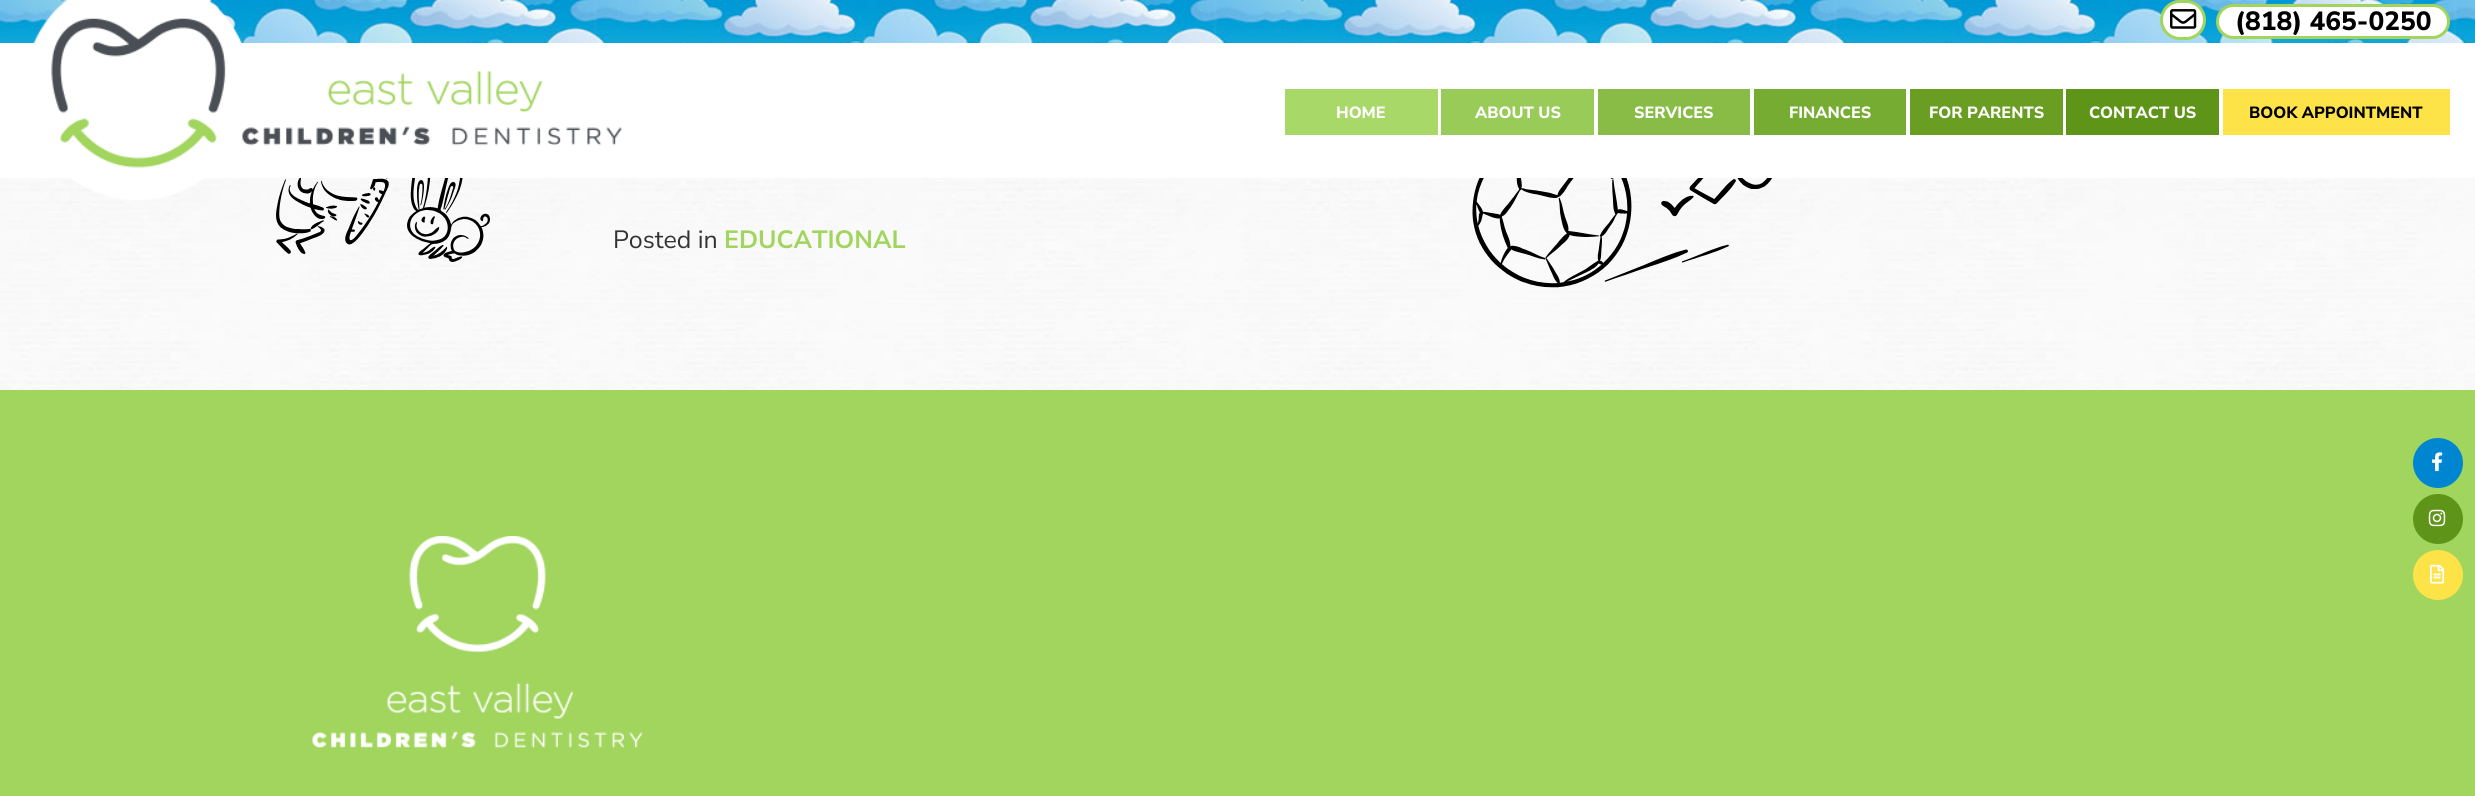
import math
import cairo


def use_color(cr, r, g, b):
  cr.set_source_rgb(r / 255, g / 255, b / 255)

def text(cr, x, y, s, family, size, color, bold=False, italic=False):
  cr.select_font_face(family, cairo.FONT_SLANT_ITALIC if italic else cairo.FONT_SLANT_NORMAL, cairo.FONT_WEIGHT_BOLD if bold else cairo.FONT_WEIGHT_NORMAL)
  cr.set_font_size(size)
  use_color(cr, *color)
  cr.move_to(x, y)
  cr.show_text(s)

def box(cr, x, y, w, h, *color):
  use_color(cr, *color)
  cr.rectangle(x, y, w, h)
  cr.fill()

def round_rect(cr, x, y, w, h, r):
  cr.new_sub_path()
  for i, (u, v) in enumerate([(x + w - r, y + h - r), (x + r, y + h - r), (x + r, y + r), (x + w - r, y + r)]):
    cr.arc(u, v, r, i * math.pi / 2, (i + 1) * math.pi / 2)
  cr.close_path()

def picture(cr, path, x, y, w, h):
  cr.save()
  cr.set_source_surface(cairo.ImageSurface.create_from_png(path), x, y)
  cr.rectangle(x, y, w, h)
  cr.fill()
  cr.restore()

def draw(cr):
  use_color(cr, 255, 255, 255)
  cr.paint()
  picture(cr, "img_01.png", 0, 178, 2475, 212)
  picture(cr, "img_02.png", 0, 0, 2475, 43)
  picture(cr, "img_08.png", 276, 178, 1496, 110)
  picture(cr, "img_03.png", 33, 0, 589, 200)
  use_color(cr, 255, 255, 255)
  round_rect(cr, 2161.5, 1.5, 43, 37, 18.5)
  cr.fill_preserve()
  use_color(cr, 161, 213, 93)
  cr.set_line_width(3)
  cr.stroke()
  picture(cr, "img_04.png", 2170, 9, 27, 20)
  use_color(cr, 255, 255, 255)
  round_rect(cr, 2217.5, 5.5, 231, 32, 16)
  cr.fill_preserve()
  use_color(cr, 161, 213, 93)
  cr.stroke()
  box(cr, 1285, 89, 153, 46, 168, 216, 104)
  box(cr, 1441, 89, 153, 46, 153, 203, 88)
  box(cr, 1598, 89, 152, 46, 136, 188, 70)
  box(cr, 1754, 89, 152, 46, 119, 172, 51)
  box(cr, 1910, 89, 153, 46, 105, 158, 35)
  box(cr, 2066, 89, 153, 46, 94, 148, 23)
  box(cr, 2223, 89, 227, 46, 253, 227, 71)
  box(cr, 0, 390, 2475, 406, 161, 213, 93)
  use_color(cr, 0, 134, 208)
  cr.arc(2438, 463, 25, 0, 2 * math.pi)
  cr.fill()
  picture(cr, "img_05.png", 2432, 452, 11, 20)
  use_color(cr, 94, 148, 23)
  cr.arc(2438, 519, 25, 0, 2 * math.pi)
  cr.fill()
  picture(cr, "img_06.png", 2428, 509, 18, 18)
  use_color(cr, 253, 227, 71)
  cr.arc(2438, 575, 25, 0, 2 * math.pi)
  cr.fill()
  picture(cr, "img_07.png", 2430, 564, 15, 20)
  picture(cr, "img_09.png", 312, 536, 331, 212)
  text(cr, 2235, 30, "(818) 465-0250", "Nunito Sans ExtraBold", 26.25, (0, 0, 0))
  text(cr, 1336, 118, "HOME", "Nunito Sans ExtraBold", 16.25, (255, 255, 255))
  text(cr, 1475, 118, "ABOUT US", "Nunito Sans ExtraBold", 16.25, (255, 255, 255))
  text(cr, 1634, 118, "SERVICES", "Nunito Sans ExtraBold", 16.25, (255, 255, 255))
  text(cr, 1789, 118, "FINANCES", "Nunito Sans ExtraBold", 16.25, (255, 255, 255))
  text(cr, 1929, 118, "FOR PARENTS", "Nunito Sans ExtraBold", 16.25, (255, 255, 255))
  text(cr, 2089, 118, "CONTACT US", "Nunito Sans ExtraBold", 16.25, (255, 255, 255))
  text(cr, 2249, 118, "BOOK APPOINTMENT", "Nunito Sans ExtraBold", 16.25, (0, 0, 0))
  text(cr, 613, 248, "Posted in", "Nunito Sans", 25, (51, 51, 51))
  text(cr, 724, 248, "EDUCATIONAL", "Nunito Sans", 25, (161, 213, 93), bold=True)


surface = cairo.ImageSurface(cairo.FORMAT_RGB24, 2475, 796)
cr = cairo.Context(surface)
options = cairo.FontOptions()
options.set_hint_metrics(cairo.HINT_METRICS_OFF)
options.set_hint_style(cairo.HINT_STYLE_NONE)
cr.set_font_options(options)
cr.set_miter_limit(4)
draw(cr)
surface.write_to_png("out.png")
